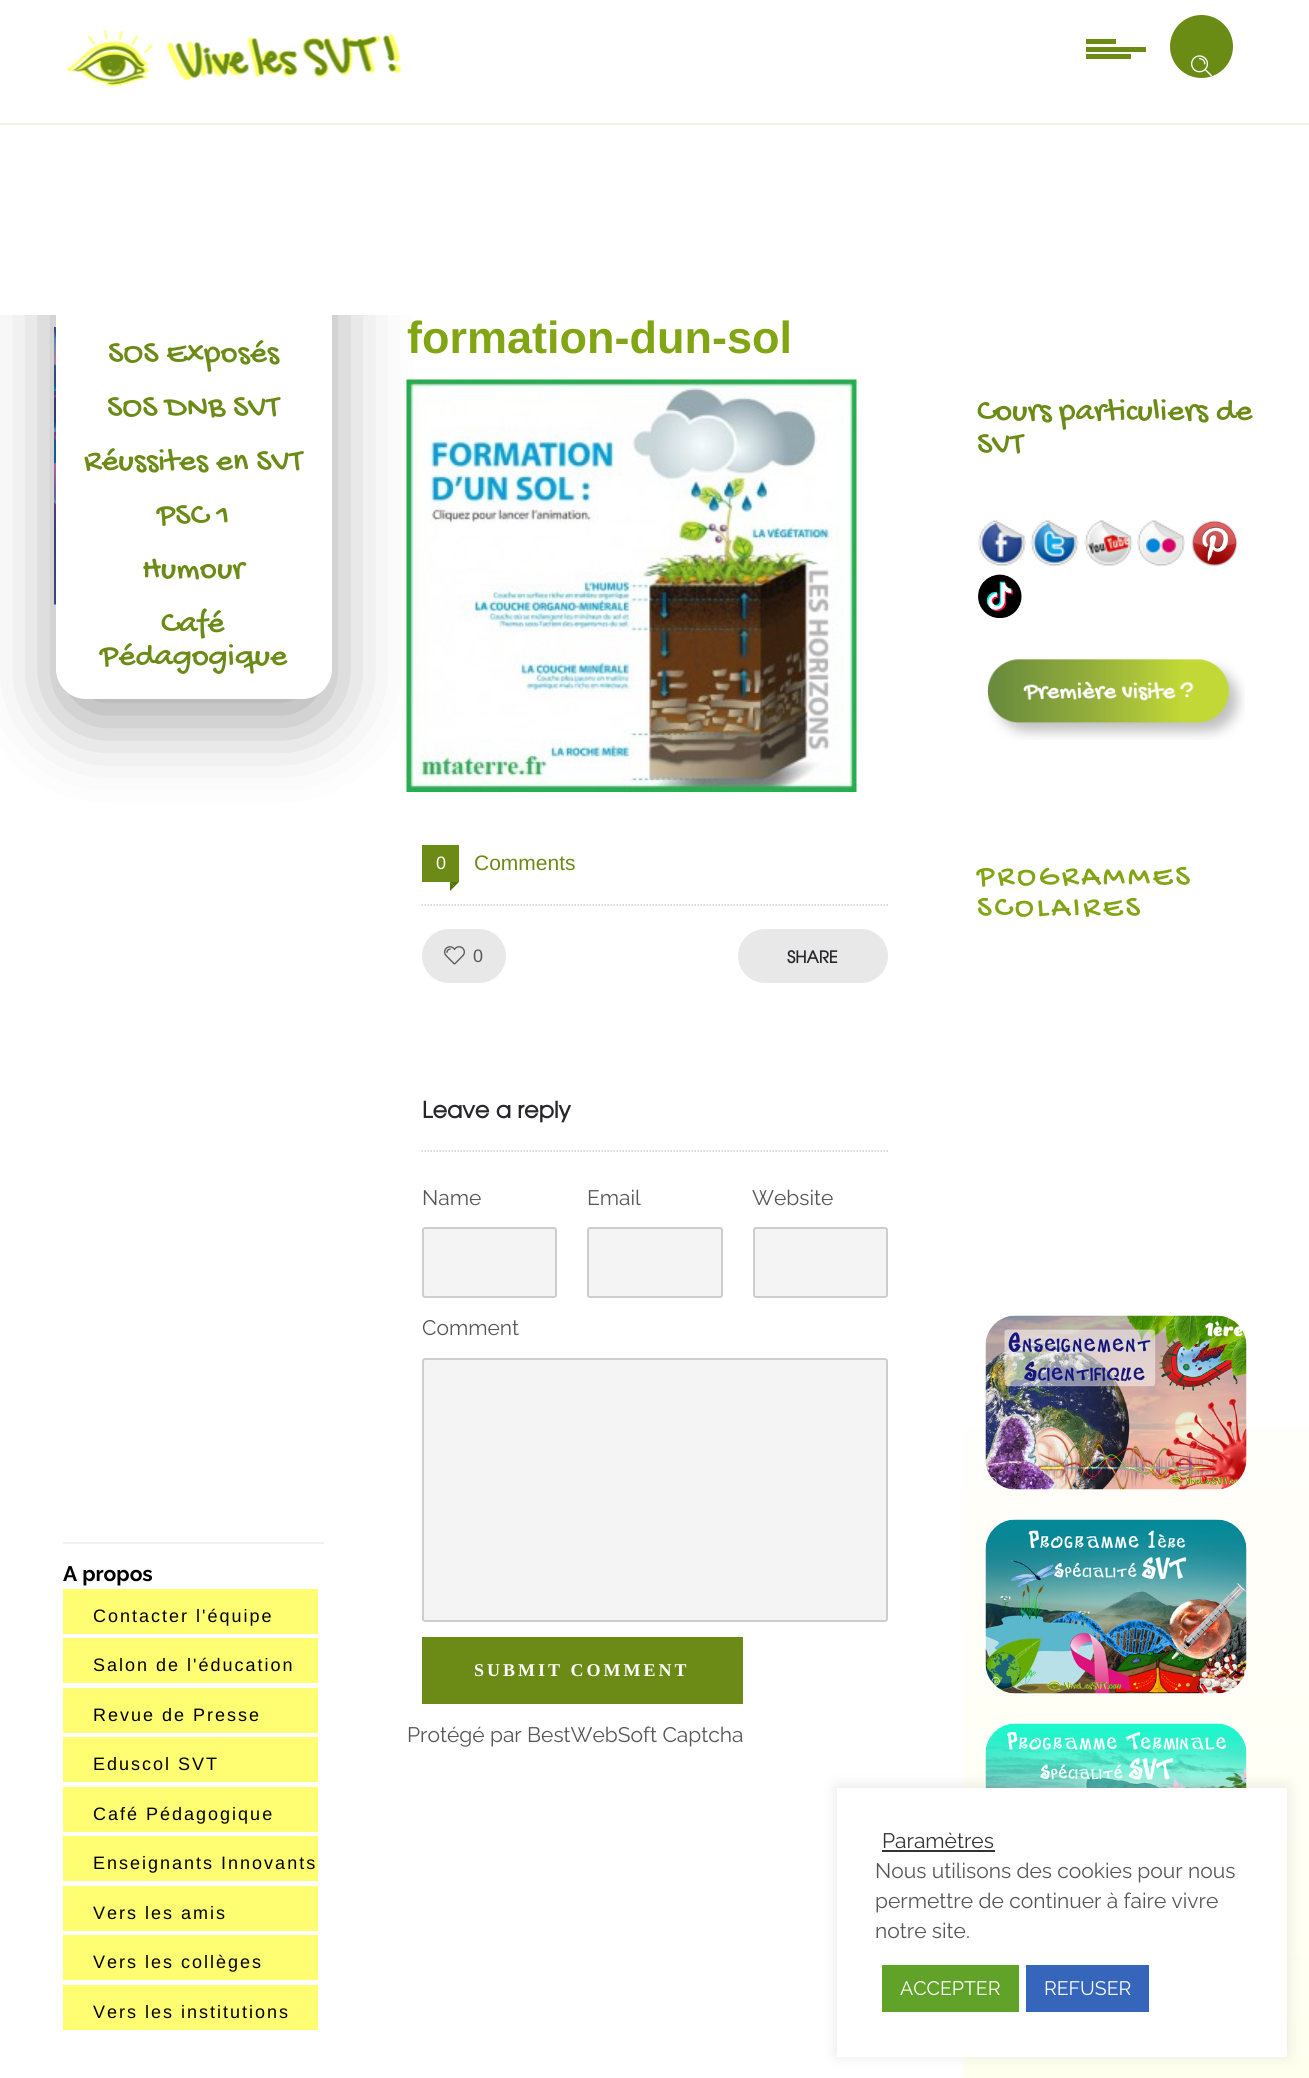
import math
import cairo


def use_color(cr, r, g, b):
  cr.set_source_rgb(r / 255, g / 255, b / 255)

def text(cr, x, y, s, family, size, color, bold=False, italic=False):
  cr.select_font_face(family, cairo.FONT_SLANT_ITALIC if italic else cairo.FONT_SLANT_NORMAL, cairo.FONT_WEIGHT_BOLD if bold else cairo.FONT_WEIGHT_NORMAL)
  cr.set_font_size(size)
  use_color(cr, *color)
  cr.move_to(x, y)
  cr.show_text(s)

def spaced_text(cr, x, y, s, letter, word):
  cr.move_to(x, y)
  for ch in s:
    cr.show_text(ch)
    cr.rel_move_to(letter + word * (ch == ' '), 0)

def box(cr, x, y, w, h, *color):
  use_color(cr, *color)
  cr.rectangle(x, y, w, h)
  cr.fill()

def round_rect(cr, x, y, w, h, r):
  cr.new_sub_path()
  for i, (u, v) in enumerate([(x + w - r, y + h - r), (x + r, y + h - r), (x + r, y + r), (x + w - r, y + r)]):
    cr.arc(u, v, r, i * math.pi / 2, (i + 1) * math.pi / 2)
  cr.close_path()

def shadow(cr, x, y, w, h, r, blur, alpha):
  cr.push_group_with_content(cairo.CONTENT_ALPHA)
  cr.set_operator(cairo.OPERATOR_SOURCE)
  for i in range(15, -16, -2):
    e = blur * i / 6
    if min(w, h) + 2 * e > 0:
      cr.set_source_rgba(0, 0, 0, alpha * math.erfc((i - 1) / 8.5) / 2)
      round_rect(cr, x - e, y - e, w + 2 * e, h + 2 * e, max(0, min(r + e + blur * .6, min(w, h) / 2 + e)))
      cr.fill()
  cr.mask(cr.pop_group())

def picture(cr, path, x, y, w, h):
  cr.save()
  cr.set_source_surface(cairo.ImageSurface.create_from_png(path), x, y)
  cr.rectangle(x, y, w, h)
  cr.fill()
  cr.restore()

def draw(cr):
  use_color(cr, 255, 255, 255)
  cr.paint()
  picture(cr, "img_03.png", 54, 327, 2, 278)
  picture(cr, "img_04.png", 406, 379, 451, 413)
  cr.save()
  cr.rectangle(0, 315, 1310, 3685)
  cr.clip()
  use_color(cr, 0, 0, 0)
  shadow(cr, 56, 35, 276, 687, 30, 37.5, 0.35)
  cr.restore()
  box(cr, 0, 123, 1309, 2, 240, 243, 232)
  picture(cr, "img_01.png", 67, 30, 335, 57)
  box(cr, 1086, 39, 30, 5, 106, 139, 20)
  box(cr, 1086, 47, 60, 5, 106, 139, 20)
  box(cr, 1086, 54, 45, 5, 106, 139, 20)
  cr.arc(1201.5, 46.5, 31.5, 0, 2 * math.pi)
  cr.fill()
  picture(cr, "img_02.png", 1191, 55, 21, 22)
  use_color(cr, 255, 255, 255)
  cr.new_path()
  cr.move_to(56, 315)
  cr.line_to(332, 315)
  cr.line_to(332, 669)
  cr.curve_to(332, 685.5, 318.5, 699, 302, 699)
  cr.line_to(86, 699)
  cr.curve_to(69.5, 699, 56, 685.5, 56, 669)
  cr.close_path()
  cr.fill()
  box(cr, 63, 1542, 261, 2, 241, 241, 241)
  box(cr, 63, 1589, 255, 45, 255, 253, 113)
  box(cr, 63, 1638, 255, 45, 255, 253, 113)
  box(cr, 63, 1688, 255, 45, 255, 253, 113)
  box(cr, 63, 1737, 255, 45, 255, 253, 113)
  box(cr, 63, 1787, 255, 45, 255, 253, 113)
  box(cr, 63, 1836, 255, 45, 255, 253, 113)
  box(cr, 63, 1886, 255, 45, 255, 253, 113)
  box(cr, 63, 1935, 255, 45, 255, 253, 113)
  box(cr, 63, 1985, 255, 45, 255, 253, 113)
  cr.new_path()
  cr.move_to(421.5, 905)
  cr.line_to(888, 905)
  use_color(cr, 205, 205, 205)
  cr.set_line_width(1.5)
  cr.set_dash([1.5, 1.5])
  cr.stroke()
  box(cr, 422, 845, 37, 37, 107, 139, 22)
  use_color(cr, 81, 113, 0)
  cr.new_path()
  cr.move_to(450, 882)
  cr.line_to(459, 882)
  cr.line_to(454.5, 886.5)
  cr.close_path()
  cr.fill()
  cr.new_path()
  cr.move_to(450, 891)
  cr.line_to(450, 882)
  cr.line_to(454.5, 886.5)
  cr.close_path()
  cr.fill()
  use_color(cr, 232, 232, 232)
  round_rect(cr, 422, 929, 84, 54, 27)
  cr.fill()
  picture(cr, "img_05.png", 444, 946, 21, 19)
  round_rect(cr, 738, 929, 150, 54, 27)
  cr.fill()
  cr.new_path()
  cr.move_to(421.5, 1151)
  cr.line_to(888, 1151)
  use_color(cr, 205, 205, 205)
  cr.stroke()
  use_color(cr, 244, 244, 244)
  round_rect(cr, 423, 1228, 133, 69, 2)
  cr.fill_preserve()
  use_color(cr, 205, 205, 205)
  cr.set_line_width(2)
  cr.set_dash([])
  cr.stroke()
  use_color(cr, 244, 244, 244)
  round_rect(cr, 588, 1228, 134, 69, 2)
  cr.fill_preserve()
  use_color(cr, 205, 205, 205)
  cr.stroke()
  use_color(cr, 244, 244, 244)
  round_rect(cr, 754, 1228, 133, 69, 2)
  cr.fill_preserve()
  use_color(cr, 205, 205, 205)
  cr.stroke()
  use_color(cr, 244, 244, 244)
  round_rect(cr, 423, 1359, 464, 262, 2)
  cr.fill_preserve()
  use_color(cr, 205, 205, 205)
  cr.stroke()
  box(cr, 422, 1637, 321, 67, 107, 139, 22)
  picture(cr, "img_06.png", 978, 520, 48, 46)
  picture(cr, "img_07.png", 1030, 520, 49, 46)
  picture(cr, "img_08.png", 1084, 520, 49, 46)
  picture(cr, "img_09.png", 1137, 520, 48, 46)
  picture(cr, "img_10.png", 1191, 520, 47, 47)
  picture(cr, "img_11.png", 978, 574, 44, 44)
  picture(cr, "img_12.png", 987, 659, 258, 81)
  picture(cr, "img_16.png", 963, 1427, 346, 651)
  picture(cr, "img_13.png", 985, 1315, 262, 175)
  picture(cr, "img_14.png", 985, 1519, 262, 175)
  picture(cr, "img_15.png", 985, 1723, 262, 65)
  use_color(cr, 172, 171, 171)
  shadow(cr, 837, 1787, 450, 268, 0, 7.5, 0.3)
  box(cr, 837, 1788, 450, 269, 255, 255, 255)
  box(cr, 882, 1850, 113, 2, 51, 51, 51)
  box(cr, 882, 1965, 137, 47, 97, 162, 41)
  box(cr, 1026, 1965, 123, 47, 53, 102, 187)
  text(cr, 108, 361, "SOS Exposés", "Gochi Hand", 33, (107, 139, 22))
  text(cr, 107, 415, "SOS DNB SVT", "Gochi Hand", 33, (107, 139, 22))
  text(cr, 84, 469, "Réussites en SVT", "Gochi Hand", 33, (107, 139, 22))
  text(cr, 157, 523, "PSC 1", "Gochi Hand", 33, (107, 139, 22))
  text(cr, 142, 577, "Humour", "Gochi Hand", 33, (107, 139, 22))
  text(cr, 161, 631, "Café", "Gochi Hand", 33, (107, 139, 22))
  text(cr, 100, 664, "Pédagogique", "Gochi Hand", 33, (107, 139, 22))
  text(cr, 63, 1581, "A propos", "Raleway", 21, (0, 0, 0), bold=True)
  cr.select_font_face("Liberation Sans")
  cr.set_font_size(18)
  spaced_text(cr, 93, 1622, "Contacter l'équipe", 2, 0)
  spaced_text(cr, 93, 1671, "Salon de l'éducation", 2, 0)
  spaced_text(cr, 93, 1721, "Revue de Presse", 2, 0)
  spaced_text(cr, 93, 1770, "Eduscol SVT", 2, 0)
  spaced_text(cr, 93, 1820, "Café Pédagogique", 2, 0)
  spaced_text(cr, 93, 1869, "Enseignants Innovants", 2, 0)
  spaced_text(cr, 93, 1919, "Vers les amis", 2, 0)
  spaced_text(cr, 93, 1968, "Vers les collèges", 2, 0)
  spaced_text(cr, 93, 2018, "Vers les institutions", 2, 0)
  text(cr, 407, 353, "formation-dun-sol", "Liberation Sans", 45, (130, 165, 20), bold=True)
  text(cr, 436, 869, "0", "Liberation Sans", 18, (255, 255, 255))
  text(cr, 474, 870, "Comments", "Liberation Sans", 21, (107, 139, 22))
  text(cr, 473, 962, "0", "Liberation Sans", 18, (86, 86, 86))
  text(cr, 787, 963, "SHARE", "TeX Gyre Adventor", 16.5, (40, 38, 43), bold=True)
  text(cr, 422, 1118, "Leave a reply", "TeX Gyre Adventor", 22.5, (40, 38, 43), bold=True)
  text(cr, 422, 1205, "Name", "Raleway", 21, (86, 86, 86))
  text(cr, 587, 1205, "Email", "Raleway", 21, (86, 86, 86))
  text(cr, 752, 1205, "Website", "Raleway", 21, (86, 86, 86))
  text(cr, 422, 1335, "Comment", "Raleway", 21, (86, 86, 86))
  cr.select_font_face("Liberation Serif", cairo.FONT_SLANT_NORMAL, cairo.FONT_WEIGHT_BOLD)
  cr.set_font_size(18)
  use_color(cr, 255, 255, 255)
  spaced_text(cr, 474, 1676, "SUBMIT COMMENT", 3, 0)
  text(cr, 407, 1742, "Protégé par BestWebSoft Captcha", "Raleway", 21, (86, 86, 86))
  text(cr, 977, 419, "Cours particuliers de", "Gochi Hand", 33, (107, 139, 22))
  text(cr, 977, 452, "SVT", "Gochi Hand", 33, (107, 139, 22))
  cr.set_font_size(31.5)
  use_color(cr, 130, 165, 20)
  spaced_text(cr, 977, 884, "PROGRAMMES", 3, 0)
  spaced_text(cr, 977, 915, "SCOLAIRES", 3, 0)
  text(cr, 882, 1848, "Paramètres", "Raleway", 21, (51, 51, 51))
  text(cr, 875, 1878, "Nous utilisons des cookies pour nous", "Raleway", 21, (86, 86, 86))
  text(cr, 875, 1908, "permettre de continuer à faire vivre", "Raleway", 21, (86, 86, 86))
  text(cr, 875, 1938, "notre site.", "Raleway", 21, (86, 86, 86))
  text(cr, 900, 1995, "ACCEPTER", "Raleway", 19.5, (255, 255, 255))
  text(cr, 1044, 1995, "REFUSER", "Raleway", 19.5, (255, 255, 255))


surface = cairo.ImageSurface(cairo.FORMAT_RGB24, 1309, 2078)
cr = cairo.Context(surface)
options = cairo.FontOptions()
options.set_hint_metrics(cairo.HINT_METRICS_OFF)
options.set_hint_style(cairo.HINT_STYLE_NONE)
cr.set_font_options(options)
cr.set_miter_limit(4)
draw(cr)
surface.write_to_png("out.png")
